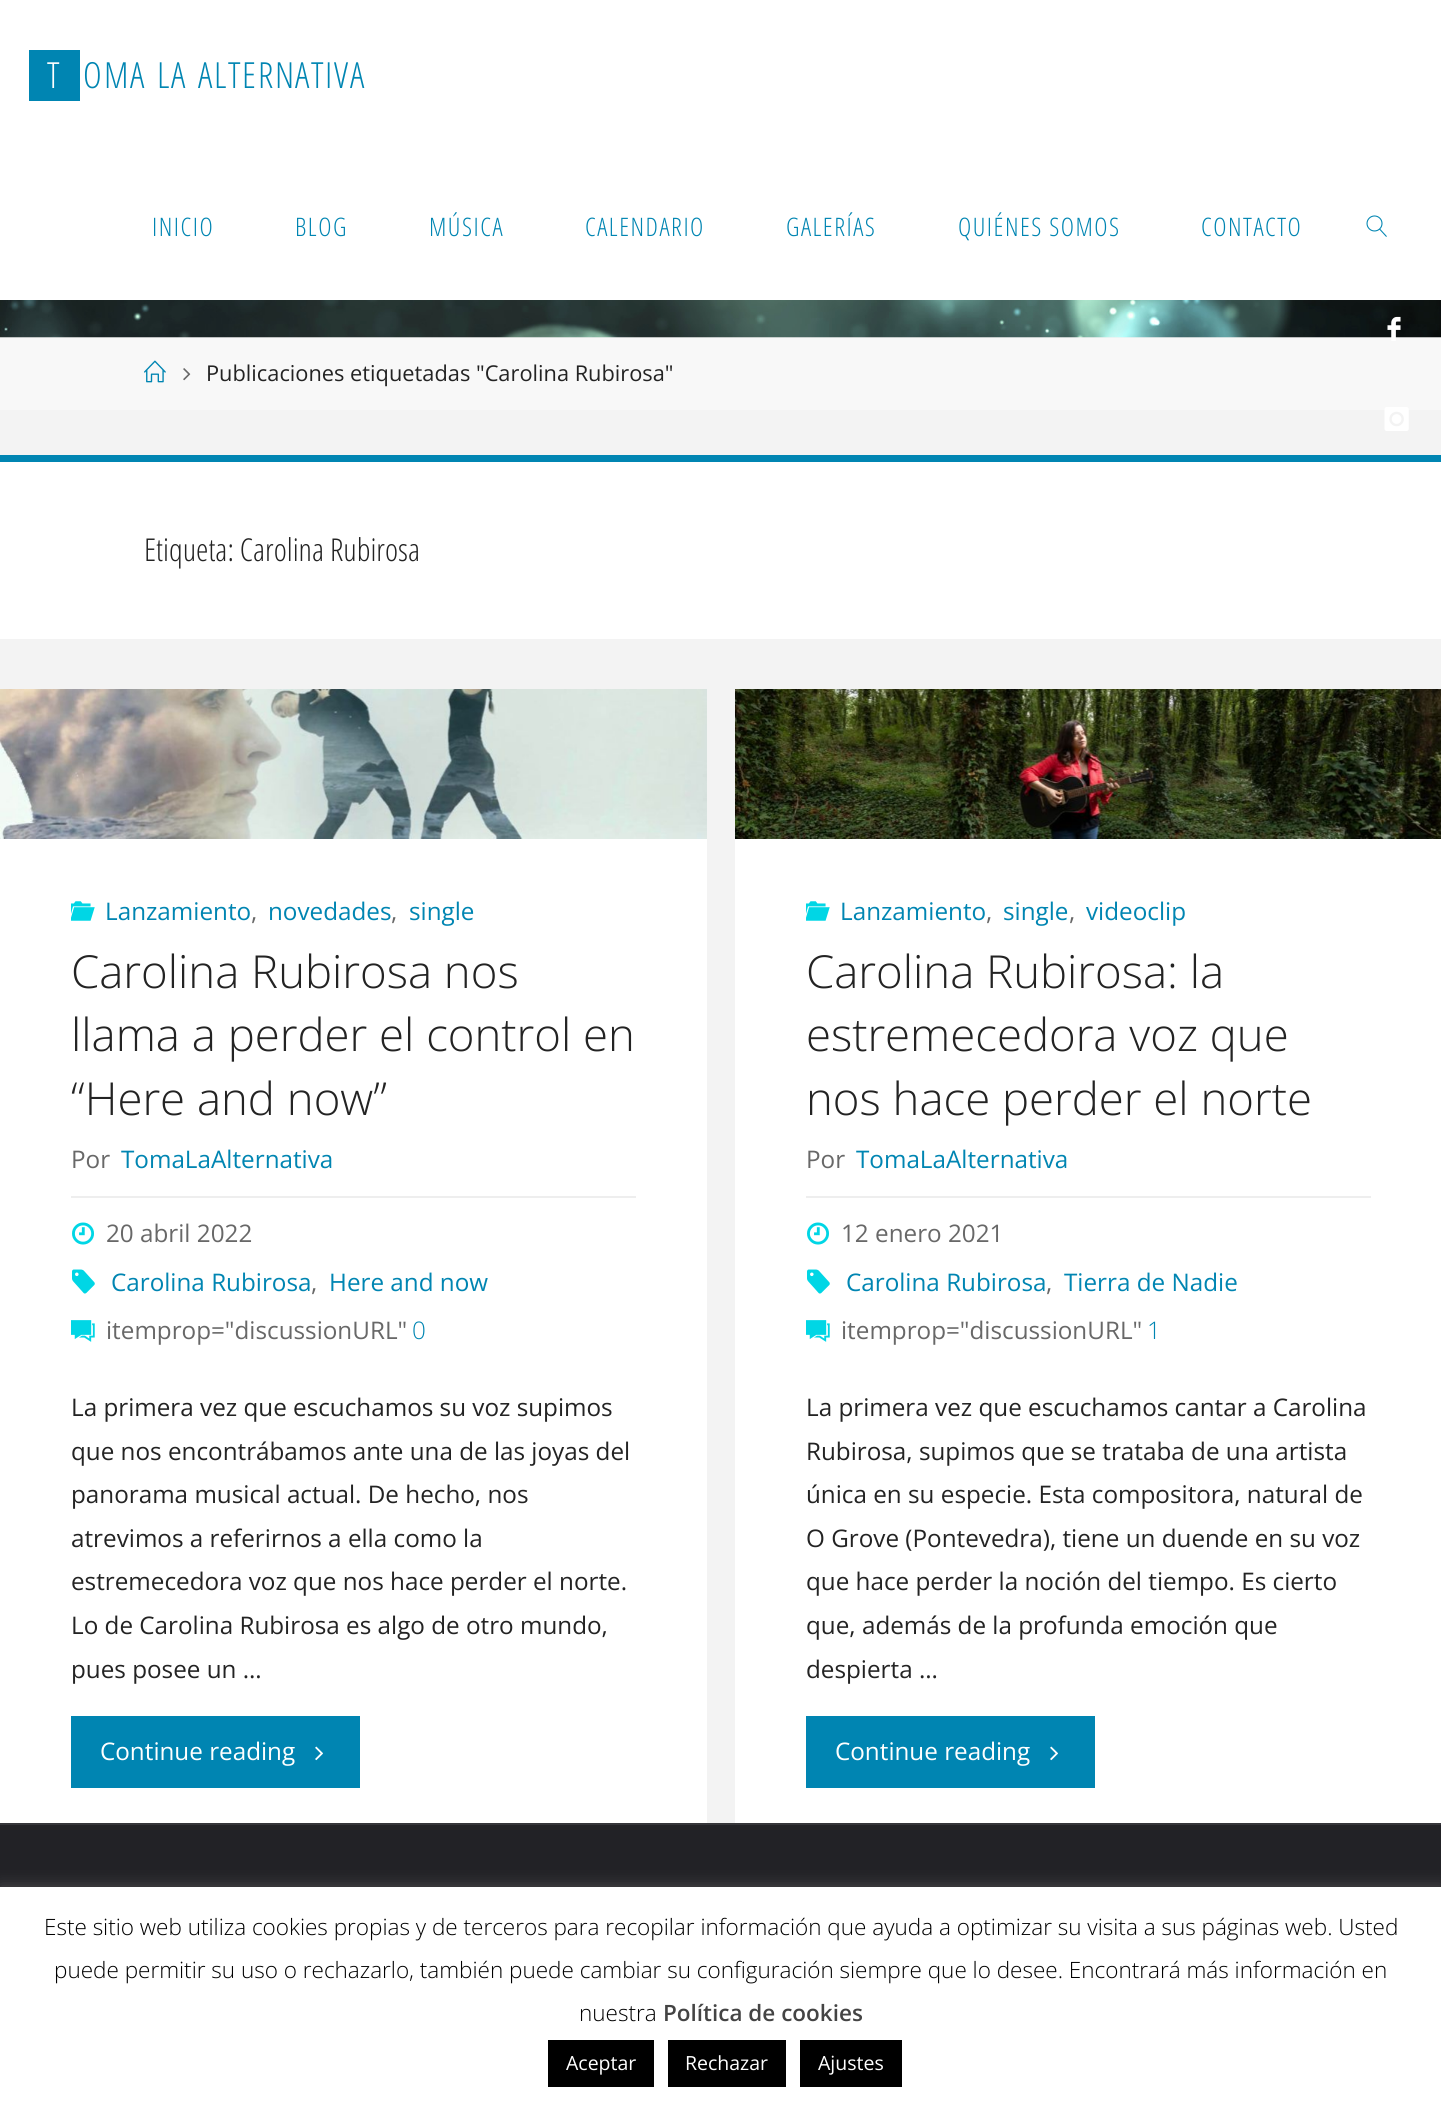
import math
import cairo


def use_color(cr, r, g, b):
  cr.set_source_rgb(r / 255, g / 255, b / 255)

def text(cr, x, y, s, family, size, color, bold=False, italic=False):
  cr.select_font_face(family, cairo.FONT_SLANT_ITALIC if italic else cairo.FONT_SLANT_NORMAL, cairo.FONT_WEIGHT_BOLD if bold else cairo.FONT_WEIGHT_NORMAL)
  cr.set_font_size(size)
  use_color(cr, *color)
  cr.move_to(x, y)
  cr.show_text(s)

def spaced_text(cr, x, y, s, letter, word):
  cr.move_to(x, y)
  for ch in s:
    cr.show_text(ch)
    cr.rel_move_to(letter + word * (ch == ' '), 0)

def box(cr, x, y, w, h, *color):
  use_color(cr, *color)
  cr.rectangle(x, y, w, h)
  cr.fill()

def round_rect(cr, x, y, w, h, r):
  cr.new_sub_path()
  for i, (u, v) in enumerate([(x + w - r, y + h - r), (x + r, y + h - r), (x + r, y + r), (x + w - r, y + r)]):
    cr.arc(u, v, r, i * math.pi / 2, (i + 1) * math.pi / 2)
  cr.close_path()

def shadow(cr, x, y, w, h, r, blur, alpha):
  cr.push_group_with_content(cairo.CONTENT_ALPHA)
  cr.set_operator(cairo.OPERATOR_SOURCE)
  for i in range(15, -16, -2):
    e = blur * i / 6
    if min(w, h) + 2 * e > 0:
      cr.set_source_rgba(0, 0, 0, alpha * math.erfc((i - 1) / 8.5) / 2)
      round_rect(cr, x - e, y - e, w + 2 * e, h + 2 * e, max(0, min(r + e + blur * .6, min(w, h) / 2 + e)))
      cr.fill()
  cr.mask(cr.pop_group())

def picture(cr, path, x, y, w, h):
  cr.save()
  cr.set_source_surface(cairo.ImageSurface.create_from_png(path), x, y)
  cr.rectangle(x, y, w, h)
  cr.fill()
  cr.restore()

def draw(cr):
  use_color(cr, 243, 243, 243)
  cr.paint()
  box(cr, 0, 0, 1441, 300, 255, 255, 255)
  box(cr, 29, 50, 51, 51, 0, 133, 178)
  picture(cr, "img_01.png", 1366, 215, 21, 22)
  picture(cr, "img_04.png", 0, 300, 1441, 38)
  box(cr, 0, 338, 1441, 72, 248, 248, 248)
  picture(cr, "img_02.png", 1387, 316, 14, 25)
  picture(cr, "img_03.png", 1384, 407, 25, 24)
  picture(cr, "img_05.png", 144, 360, 22, 23)
  picture(cr, "img_06.png", 183, 368, 8, 13)
  box(cr, 0, 462, 1441, 177, 255, 255, 255)
  box(cr, 0, 455, 1441, 7, 0, 133, 178)
  box(cr, 0, 839, 707, 984, 255, 255, 255)
  picture(cr, "img_07.png", 0, 689, 707, 150)
  picture(cr, "img_08.png", 71, 901, 24, 20)
  box(cr, 71, 1196, 565, 2, 238, 238, 238)
  picture(cr, "img_09.png", 72, 1222, 22, 23)
  picture(cr, "img_10.png", 72, 1269, 23, 25)
  picture(cr, "img_11.png", 71, 1320, 24, 22)
  box(cr, 71, 1716, 289, 72, 0, 133, 178)
  picture(cr, "img_12.png", 315, 1746, 8, 15)
  box(cr, 735, 839, 706, 984, 255, 255, 255)
  picture(cr, "img_13.png", 735, 689, 706, 150)
  picture(cr, "img_08.png", 806, 901, 24, 20)
  box(cr, 806, 1196, 565, 2, 238, 238, 238)
  picture(cr, "img_09.png", 807, 1222, 22, 23)
  picture(cr, "img_10.png", 807, 1269, 23, 25)
  picture(cr, "img_11.png", 806, 1320, 24, 22)
  box(cr, 806, 1716, 289, 72, 0, 133, 178)
  picture(cr, "img_12.png", 1050, 1746, 8, 15)
  box(cr, 0, 1825, 1441, 62, 34, 34, 38)
  box(cr, 0, 1823, 1441, 2, 54, 54, 58)
  use_color(cr, 172, 171, 171)
  shadow(cr, 0, 1886, 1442, 217, 0, 7.5, 0.3)
  box(cr, 0, 1887, 1441, 217, 255, 255, 255)
  box(cr, 548, 2040, 106, 47, 0, 0, 0)
  box(cr, 668, 2040, 118, 47, 0, 0, 0)
  box(cr, 800, 2040, 102, 47, 0, 0, 0)
  text(cr, 47, 88, "T", "Open Sans Condensed Light", 36, (255, 255, 255))
  text(cr, 83, 88, "O", "Open Sans Condensed Light", 36, (0, 133, 178))
  text(cr, 104, 88, "M", "Open Sans Condensed Light", 36, (0, 133, 178))
  text(cr, 130, 88, "A", "Open Sans Condensed Light", 36, (0, 133, 178))
  text(cr, 157, 88, "L", "Open Sans Condensed Light", 36, (0, 133, 178))
  text(cr, 171, 88, "A", "Open Sans Condensed Light", 36, (0, 133, 178))
  text(cr, 198, 88, "A", "Open Sans Condensed Light", 36, (0, 133, 178))
  text(cr, 214, 88, "L", "Open Sans Condensed Light", 36, (0, 133, 178))
  text(cr, 228, 88, "T", "Open Sans Condensed Light", 36, (0, 133, 178))
  text(cr, 242, 88, "E", "Open Sans Condensed Light", 36, (0, 133, 178))
  text(cr, 258, 88, "R", "Open Sans Condensed Light", 36, (0, 133, 178))
  text(cr, 275, 88, "N", "Open Sans Condensed Light", 36, (0, 133, 178))
  text(cr, 295, 88, "A", "Open Sans Condensed Light", 36, (0, 133, 178))
  text(cr, 311, 88, "T", "Open Sans Condensed Light", 36, (0, 133, 178))
  text(cr, 325, 88, "I", "Open Sans Condensed Light", 36, (0, 133, 178))
  text(cr, 334, 88, "V", "Open Sans Condensed Light", 36, (0, 133, 178))
  text(cr, 350, 88, "A", "Open Sans Condensed Light", 36, (0, 133, 178))
  cr.set_font_size(25.5)
  spaced_text(cr, 152, 236, "INICIO", 1.5, 0)
  spaced_text(cr, 295, 236, "BLOG", 1.5, 0)
  spaced_text(cr, 429, 236, "MÚSICA", 1.5, 0)
  spaced_text(cr, 585, 236, "CALENDARIO", 1.5, 0)
  spaced_text(cr, 786, 236, "GALERÍAS", 1.5, 0)
  spaced_text(cr, 958, 236, "QUIÉNES SOMOS", 1.5, 0)
  spaced_text(cr, 1201, 236, "CONTACTO", 1.5, 0)
  text(cr, 206, 381, "Publicaciones etiquetadas \"Carolina Rubirosa\"", "Open Sans", 21.8, (35, 35, 35))
  text(cr, 144, 561, "Etiqueta: Carolina Rubirosa", "Open Sans Condensed Light", 31.5, (35, 35, 35))
  text(cr, 105, 920, "Lanzamiento", "Open Sans", 24.25, (0, 133, 178))
  text(cr, 251, 920, ",", "Open Sans", 24.25, (104, 104, 104))
  text(cr, 268, 920, "novedades", "Open Sans", 24.25, (0, 133, 178))
  text(cr, 391, 920, ",", "Open Sans", 24.25, (104, 104, 104))
  text(cr, 409, 920, "single", "Open Sans", 24.25, (0, 133, 178))
  text(cr, 71, 988, "Carolina Rubirosa nos", "Open Sans Light", 45.5, (35, 35, 35))
  text(cr, 71, 1051, "llama a perder el control en", "Open Sans Light", 45.5, (35, 35, 35))
  text(cr, 71, 1115, "“Here and now”", "Open Sans Light", 45.5, (35, 35, 35))
  text(cr, 71, 1168, "Por", "Open Sans", 24.25, (104, 104, 104))
  text(cr, 121, 1168, "TomaLaAlternativa", "Open Sans", 24.25, (0, 133, 178))
  text(cr, 106, 1242, "20 abril 2022", "Open Sans", 24.25, (104, 104, 104))
  text(cr, 111, 1291, "Carolina Rubirosa", "Open Sans", 24.25, (0, 133, 178))
  text(cr, 311, 1291, ",", "Open Sans", 24.25, (104, 104, 104))
  text(cr, 329, 1291, "Here and now", "Open Sans", 24.25, (0, 133, 178))
  text(cr, 106, 1339, "itemprop=\"discussionURL\"", "Open Sans", 24.25, (104, 104, 104))
  text(cr, 412, 1339, "0", "Open Sans Light", 24.25, (0, 133, 178))
  text(cr, 71, 1416, "La primera vez que escuchamos su voz supimos", "Open Sans", 24.25, (35, 35, 35))
  text(cr, 71, 1460, "que nos encontrábamos ante una de las joyas del", "Open Sans", 24.25, (35, 35, 35))
  text(cr, 71, 1503, "panorama musical actual. De hecho, nos", "Open Sans", 24.25, (35, 35, 35))
  text(cr, 71, 1547, "atrevimos a referirnos a ella como la", "Open Sans", 24.25, (35, 35, 35))
  text(cr, 71, 1590, "estremecedora voz que nos hace perder el norte.", "Open Sans", 24.25, (35, 35, 35))
  text(cr, 71, 1634, "Lo de Carolina Rubirosa es algo de otro mundo,", "Open Sans", 24.25, (35, 35, 35))
  text(cr, 71, 1678, "pues posee un …", "Open Sans", 24.25, (35, 35, 35))
  text(cr, 100, 1760, "Continue reading", "Open Sans", 24.25, (255, 255, 255))
  text(cr, 840, 920, "Lanzamiento", "Open Sans", 24.25, (0, 133, 178))
  text(cr, 986, 920, ",", "Open Sans", 24.25, (104, 104, 104))
  text(cr, 1003, 920, "single", "Open Sans", 24.25, (0, 133, 178))
  text(cr, 1069, 920, ",", "Open Sans", 24.25, (104, 104, 104))
  text(cr, 1086, 920, "videoclip", "Open Sans", 24.25, (0, 133, 178))
  text(cr, 806, 988, "Carolina Rubirosa: la", "Open Sans Light", 45.5, (35, 35, 35))
  text(cr, 806, 1051, "estremecedora voz que", "Open Sans Light", 45.5, (35, 35, 35))
  text(cr, 806, 1115, "nos hace perder el norte", "Open Sans Light", 45.5, (35, 35, 35))
  text(cr, 806, 1168, "Por", "Open Sans", 24.25, (104, 104, 104))
  text(cr, 856, 1168, "TomaLaAlternativa", "Open Sans", 24.25, (0, 133, 178))
  text(cr, 841, 1242, "12 enero 2021", "Open Sans", 24.25, (104, 104, 104))
  text(cr, 846, 1291, "Carolina Rubirosa", "Open Sans", 24.25, (0, 133, 178))
  text(cr, 1046, 1291, ",", "Open Sans", 24.25, (104, 104, 104))
  text(cr, 1064, 1291, "Tierra de Nadie", "Open Sans", 24.25, (0, 133, 178))
  text(cr, 841, 1339, "itemprop=\"discussionURL\"", "Open Sans", 24.25, (104, 104, 104))
  text(cr, 1147, 1339, "1", "Open Sans Light", 24.25, (0, 133, 178))
  text(cr, 806, 1416, "La primera vez que escuchamos cantar a Carolina", "Open Sans", 24.25, (35, 35, 35))
  text(cr, 806, 1460, "Rubirosa, supimos que se trataba de una artista", "Open Sans", 24.25, (35, 35, 35))
  text(cr, 806, 1503, "única en su especie. Esta compositora, natural de", "Open Sans", 24.25, (35, 35, 35))
  text(cr, 806, 1547, "O Grove (Pontevedra), tiene un duende en su voz", "Open Sans", 24.25, (35, 35, 35))
  text(cr, 806, 1590, "que hace perder la noción del tiempo. Es cierto", "Open Sans", 24.25, (35, 35, 35))
  text(cr, 806, 1634, "que, además de la profunda emoción que", "Open Sans", 24.25, (35, 35, 35))
  text(cr, 806, 1678, "despierta …", "Open Sans", 24.25, (35, 35, 35))
  text(cr, 835, 1760, "Continue reading", "Open Sans", 24.25, (255, 255, 255))
  text(cr, 44, 1935, "Este sitio web utiliza cookies propias y de terceros para recopilar información que ayuda a optimizar su visita a sus páginas web. Usted", "Open Sans Light", 22.5, (0, 0, 0))
  text(cr, 54, 1978, "puede permitir su uso o rechazarlo, también puede cambiar su configuración siempre que lo desee. Encontrará más información en", "Open Sans Light", 22.5, (0, 0, 0))
  text(cr, 579, 2021, "nuestra", "Open Sans Light", 22.5, (0, 0, 0))
  text(cr, 663, 2021, "Política de cookies", "Open Sans SemiBold", 22.5, (68, 68, 68))
  text(cr, 566, 2070, "Aceptar", "Open Sans", 19.5, (255, 255, 255))
  text(cr, 685, 2070, "Rechazar", "Open Sans", 19.5, (255, 255, 255))
  text(cr, 818, 2070, "Ajustes", "Open Sans", 19.5, (255, 255, 255))


surface = cairo.ImageSurface(cairo.FORMAT_RGB24, 1441, 2104)
cr = cairo.Context(surface)
options = cairo.FontOptions()
options.set_hint_metrics(cairo.HINT_METRICS_OFF)
options.set_hint_style(cairo.HINT_STYLE_NONE)
cr.set_font_options(options)
cr.set_miter_limit(4)
draw(cr)
surface.write_to_png("out.png")
